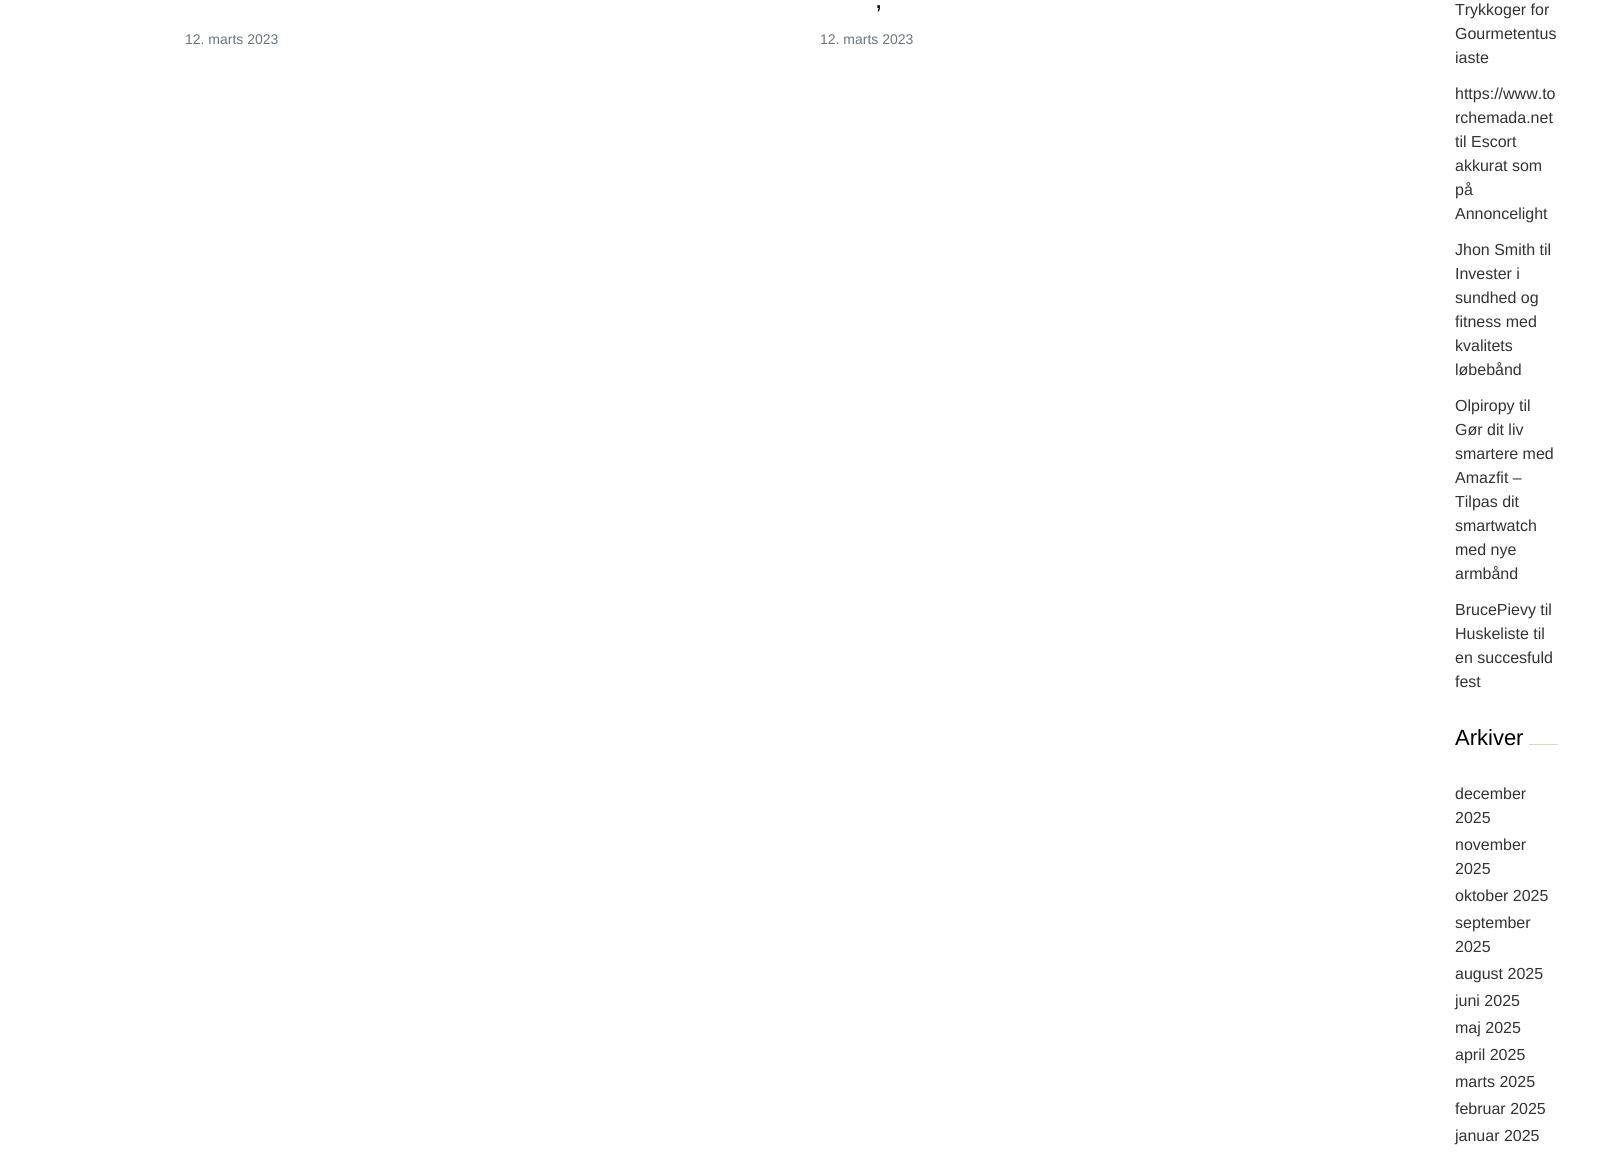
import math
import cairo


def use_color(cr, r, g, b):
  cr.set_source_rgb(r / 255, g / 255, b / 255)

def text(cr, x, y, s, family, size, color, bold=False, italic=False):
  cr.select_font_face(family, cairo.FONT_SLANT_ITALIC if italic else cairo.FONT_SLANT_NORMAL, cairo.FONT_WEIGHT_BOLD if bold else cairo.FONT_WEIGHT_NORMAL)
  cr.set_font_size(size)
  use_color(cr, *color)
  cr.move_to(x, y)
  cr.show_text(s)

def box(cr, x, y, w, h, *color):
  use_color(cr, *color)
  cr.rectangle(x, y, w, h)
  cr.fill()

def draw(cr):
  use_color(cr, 255, 255, 255)
  cr.paint()
  box(cr, 1529, 744, 29, 1, 220, 215, 202)
  text(cr, 185, 44, "12. marts 2023", "Liberation Sans", 14, (108, 117, 125))
  text(cr, 875, 8, ",", "Liberation Sans", 26, (0, 0, 0))
  text(cr, 820, 44, "12. marts 2023", "Liberation Sans", 14, (108, 117, 125))
  text(cr, 1455, 15, "Trykkoger for", "Liberation Sans", 16, (51, 51, 51))
  text(cr, 1455, 39, "Gourmetentus", "Liberation Sans", 16, (51, 51, 51))
  text(cr, 1455, 63, "iaste", "Liberation Sans", 16, (51, 51, 51))
  text(cr, 1455, 99, "https://www.to", "Liberation Sans", 16, (51, 51, 51))
  text(cr, 1455, 123, "rchemada.net", "Liberation Sans", 16, (51, 51, 51))
  text(cr, 1455, 147, "til Escort", "Liberation Sans", 16, (51, 51, 51))
  text(cr, 1455, 171, "akkurat som", "Liberation Sans", 16, (51, 51, 51))
  text(cr, 1455, 195, "på", "Liberation Sans", 16, (51, 51, 51))
  text(cr, 1455, 219, "Annoncelight", "Liberation Sans", 16, (51, 51, 51))
  text(cr, 1455, 255, "Jhon Smith til", "Liberation Sans", 16, (51, 51, 51))
  text(cr, 1455, 279, "Invester i", "Liberation Sans", 16, (51, 51, 51))
  text(cr, 1455, 303, "sundhed og", "Liberation Sans", 16, (51, 51, 51))
  text(cr, 1455, 327, "fitness med", "Liberation Sans", 16, (51, 51, 51))
  text(cr, 1455, 351, "kvalitets", "Liberation Sans", 16, (51, 51, 51))
  text(cr, 1455, 375, "løbebånd", "Liberation Sans", 16, (51, 51, 51))
  text(cr, 1455, 411, "Olpiropy til", "Liberation Sans", 16, (51, 51, 51))
  text(cr, 1455, 435, "Gør dit liv", "Liberation Sans", 16, (51, 51, 51))
  text(cr, 1455, 459, "smartere med", "Liberation Sans", 16, (51, 51, 51))
  text(cr, 1455, 483, "Amazfit –", "Liberation Sans", 16, (51, 51, 51))
  text(cr, 1455, 507, "Tilpas dit", "Liberation Sans", 16, (51, 51, 51))
  text(cr, 1455, 531, "smartwatch", "Liberation Sans", 16, (51, 51, 51))
  text(cr, 1455, 555, "med nye", "Liberation Sans", 16, (51, 51, 51))
  text(cr, 1455, 579, "armbånd", "Liberation Sans", 16, (51, 51, 51))
  text(cr, 1455, 615, "BrucePievy til", "Liberation Sans", 16, (51, 51, 51))
  text(cr, 1455, 639, "Huskeliste til", "Liberation Sans", 16, (51, 51, 51))
  text(cr, 1455, 663, "en succesfuld", "Liberation Sans", 16, (51, 51, 51))
  text(cr, 1455, 687, "fest", "Liberation Sans", 16, (51, 51, 51))
  text(cr, 1455, 745, "Arkiver", "Liberation Sans", 22, (0, 0, 0))
  text(cr, 1455, 799, "december", "Liberation Sans", 16, (51, 51, 51))
  text(cr, 1455, 823, "2025", "Liberation Sans", 16, (51, 51, 51))
  text(cr, 1455, 850, "november", "Liberation Sans", 16, (51, 51, 51))
  text(cr, 1455, 874, "2025", "Liberation Sans", 16, (51, 51, 51))
  text(cr, 1455, 901, "oktober 2025", "Liberation Sans", 16, (51, 51, 51))
  text(cr, 1455, 928, "september", "Liberation Sans", 16, (51, 51, 51))
  text(cr, 1455, 952, "2025", "Liberation Sans", 16, (51, 51, 51))
  text(cr, 1455, 979, "august 2025", "Liberation Sans", 16, (51, 51, 51))
  text(cr, 1455, 1006, "juni 2025", "Liberation Sans", 16, (51, 51, 51))
  text(cr, 1455, 1033, "maj 2025", "Liberation Sans", 16, (51, 51, 51))
  text(cr, 1455, 1060, "april 2025", "Liberation Sans", 16, (51, 51, 51))
  text(cr, 1455, 1087, "marts 2025", "Liberation Sans", 16, (51, 51, 51))
  text(cr, 1455, 1114, "februar 2025", "Liberation Sans", 16, (51, 51, 51))
  text(cr, 1455, 1141, "januar 2025", "Liberation Sans", 16, (51, 51, 51))


surface = cairo.ImageSurface(cairo.FORMAT_RGB24, 1610, 1155)
cr = cairo.Context(surface)
options = cairo.FontOptions()
options.set_hint_metrics(cairo.HINT_METRICS_OFF)
options.set_hint_style(cairo.HINT_STYLE_NONE)
cr.set_font_options(options)
cr.set_miter_limit(4)
draw(cr)
surface.write_to_png("out.png")
